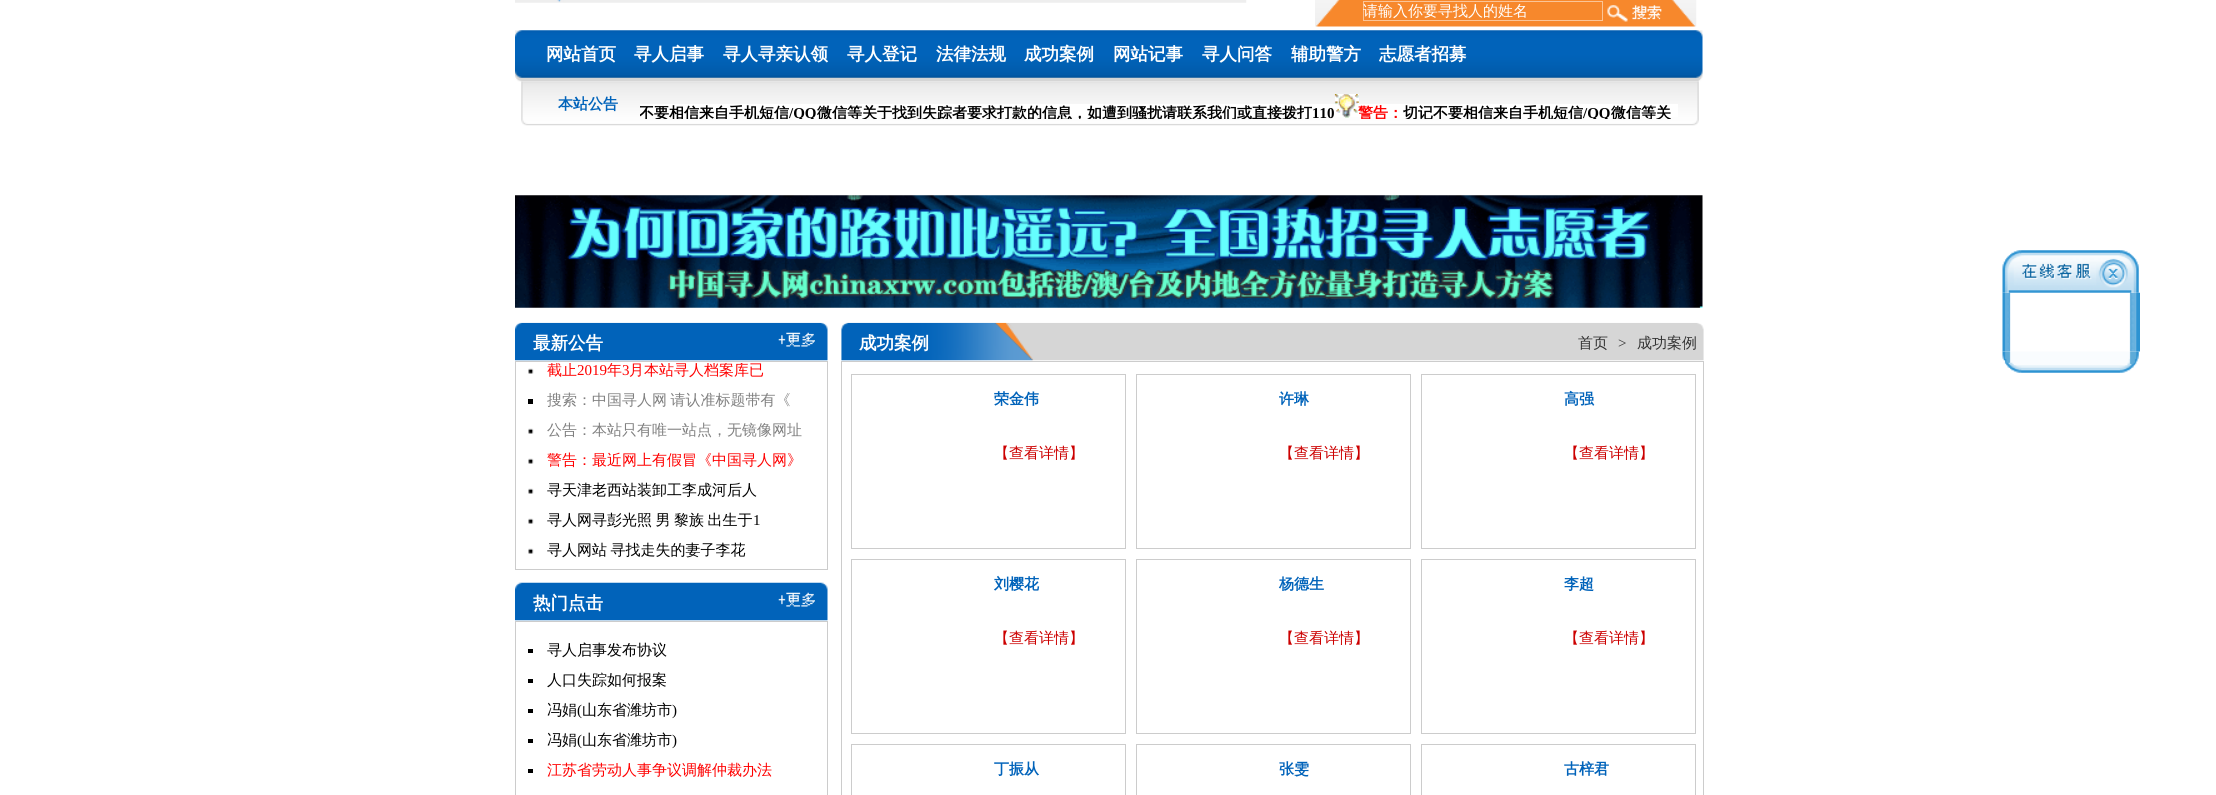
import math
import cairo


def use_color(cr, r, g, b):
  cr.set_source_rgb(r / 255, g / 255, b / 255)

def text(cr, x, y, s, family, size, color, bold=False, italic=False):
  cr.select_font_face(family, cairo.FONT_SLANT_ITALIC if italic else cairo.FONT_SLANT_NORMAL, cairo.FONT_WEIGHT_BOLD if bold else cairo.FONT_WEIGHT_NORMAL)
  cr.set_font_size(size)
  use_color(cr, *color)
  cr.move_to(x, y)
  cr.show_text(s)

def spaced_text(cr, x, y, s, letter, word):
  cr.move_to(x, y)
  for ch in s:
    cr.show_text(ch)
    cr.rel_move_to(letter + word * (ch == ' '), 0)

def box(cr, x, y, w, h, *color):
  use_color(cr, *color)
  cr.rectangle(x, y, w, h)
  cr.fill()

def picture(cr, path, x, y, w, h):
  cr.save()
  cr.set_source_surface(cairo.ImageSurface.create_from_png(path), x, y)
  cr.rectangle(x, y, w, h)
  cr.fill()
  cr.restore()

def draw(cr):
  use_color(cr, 255, 255, 255)
  cr.paint()
  picture(cr, "img_01.png", 515, 0, 732, 3)
  picture(cr, "img_02.png", 1315, 0, 382, 27)
  cr.rectangle(1363.5, 1.5, 239, 19)
  use_color(cr, 251, 196, 150)
  cr.set_line_width(1)
  cr.stroke()
  picture(cr, "img_03.png", 1607, 5, 55, 17)
  picture(cr, "img_04.png", 515, 30, 1188, 52)
  picture(cr, "img_05.png", 519, 81, 1180, 45)
  box(cr, 640, 104, 695, 13, 255, 255, 255)
  box(cr, 1335, 94, 24, 23, 255, 255, 255)
  picture(cr, "img_06.png", 1334, 94, 25, 24)
  box(cr, 1359, 104, 319, 13, 255, 255, 255)
  picture(cr, "img_07.png", 515, 195, 1188, 113)
  picture(cr, "img_08.png", 515, 322, 313, 39)
  picture(cr, "img_09.png", 778, 332, 37, 15)
  cr.rectangle(515.5, 361.5, 312, 208)
  use_color(cr, 204, 204, 204)
  cr.stroke()
  picture(cr, "img_10.png", 528, 368, 6, 6)
  box(cr, 528, 399, 5, 5, 0, 0, 0)
  picture(cr, "img_10.png", 528, 428, 6, 6)
  picture(cr, "img_10.png", 528, 458, 6, 6)
  picture(cr, "img_10.png", 528, 488, 6, 6)
  picture(cr, "img_10.png", 528, 518, 6, 6)
  picture(cr, "img_10.png", 528, 548, 6, 6)
  picture(cr, "img_11.png", 515, 582, 313, 39)
  picture(cr, "img_09.png", 778, 592, 37, 15)
  cr.rectangle(515.5, 621.5, 312, 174)
  use_color(cr, 204, 204, 204)
  cr.stroke()
  box(cr, 528, 649, 5, 4, 0, 0, 0)
  box(cr, 528, 679, 5, 4, 0, 0, 0)
  box(cr, 528, 709, 5, 4, 0, 0, 0)
  box(cr, 528, 739, 5, 4, 0, 0, 0)
  box(cr, 528, 769, 5, 4, 0, 0, 0)
  picture(cr, "img_12.png", 841, 322, 863, 39)
  cr.rectangle(841.5, 361.5, 862, 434)
  use_color(cr, 204, 204, 204)
  cr.stroke()
  cr.rectangle(851.5, 374.5, 274, 174)
  cr.stroke()
  cr.rectangle(1136.5, 374.5, 274, 174)
  cr.stroke()
  cr.rectangle(1421.5, 374.5, 274, 174)
  cr.stroke()
  cr.rectangle(851.5, 559.5, 274, 174)
  cr.stroke()
  cr.rectangle(1136.5, 559.5, 274, 174)
  cr.stroke()
  cr.rectangle(1421.5, 559.5, 274, 174)
  cr.stroke()
  cr.rectangle(851.5, 744.5, 274, 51)
  cr.stroke()
  cr.rectangle(1136.5, 744.5, 274, 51)
  cr.stroke()
  cr.rectangle(1421.5, 744.5, 274, 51)
  cr.stroke()
  picture(cr, "img_14.png", 2002, 292, 138, 60)
  picture(cr, "img_13.png", 2002, 250, 137, 43)
  picture(cr, "img_15.png", 2002, 351, 137, 22)
  text(cr, 1363, 16, "请输入你要寻找人的姓名", "WenQuanYi Zen Hei Medium", 15, (255, 255, 255))
  text(cr, 546, 60, "网站首页", "WenQuanYi Zen Hei", 17.5, (255, 255, 255), bold=True)
  text(cr, 634, 60, "寻人启事", "WenQuanYi Zen Hei", 17.5, (255, 255, 255), bold=True)
  text(cr, 723, 60, "寻人寻亲认领", "WenQuanYi Zen Hei", 17.5, (255, 255, 255), bold=True)
  text(cr, 847, 60, "寻人登记", "WenQuanYi Zen Hei", 17.5, (255, 255, 255), bold=True)
  text(cr, 936, 60, "法律法规", "WenQuanYi Zen Hei", 17.5, (255, 255, 255), bold=True)
  text(cr, 1024, 60, "成功案例", "WenQuanYi Zen Hei", 17.5, (255, 255, 255), bold=True)
  text(cr, 1113, 60, "网站记事", "WenQuanYi Zen Hei", 17.5, (255, 255, 255), bold=True)
  text(cr, 1202, 60, "寻人问答", "WenQuanYi Zen Hei", 17.5, (255, 255, 255), bold=True)
  text(cr, 1291, 60, "辅助警方", "WenQuanYi Zen Hei", 17.5, (255, 255, 255), bold=True)
  text(cr, 1379, 60, "志愿者招募", "WenQuanYi Zen Hei", 17.5, (255, 255, 255), bold=True)
  text(cr, 558, 109, "本站公告", "WenQuanYi Zen Hei", 15, (1, 99, 186), bold=True)
  cr.save()
  cr.rectangle(640, 94, 1038, 25)
  cr.clip()
  text(cr, 639, 118, "不要相信来自手机短信", "WenQuanYi Zen Hei", 15, (0, 0, 0), bold=True)
  text(cr, 789, 118, "/QQ", "Liberation Serif", 15, (0, 0, 0), bold=True)
  text(cr, 817, 118, "微信等关于找到失踪者要求打款的信息，如遭到骚扰请联系我们或直接拨打", "WenQuanYi Zen Hei", 15, (0, 0, 0), bold=True)
  cr.restore()
  text(cr, 1312, 118, "110", "Liberation Serif", 15, (0, 0, 0), bold=True)
  cr.save()
  cr.rectangle(640, 94, 1038, 25)
  cr.clip()
  text(cr, 1358, 118, "警告：", "WenQuanYi Zen Hei", 15, (255, 0, 0), bold=True)
  text(cr, 1403, 118, "切记不要相信来自手机短信", "WenQuanYi Zen Hei", 15, (0, 0, 0), bold=True)
  text(cr, 1583, 118, "/QQ", "Liberation Serif", 15, (0, 0, 0), bold=True)
  text(cr, 1611, 118, "微信等关", "WenQuanYi Zen Hei", 15, (0, 0, 0), bold=True)
  cr.restore()
  text(cr, 533, 349, "最新公告", "WenQuanYi Zen Hei", 17.5, (255, 255, 255), bold=True)
  cr.save()
  cr.rectangle(516, 363, 310, 206)
  cr.clip()
  text(cr, 547, 375, "截止", "WenQuanYi Zen Hei Medium", 15, (255, 0, 0))
  cr.restore()
  text(cr, 577, 375, "2019", "Liberation Serif", 15, (255, 0, 0))
  text(cr, 607, 375, "年", "WenQuanYi Zen Hei Medium", 15, (255, 0, 0))
  text(cr, 622, 375, "3", "Liberation Serif", 15, (255, 0, 0))
  cr.save()
  cr.rectangle(516, 363, 310, 206)
  cr.clip()
  text(cr, 629, 375, "月本站寻人档案库已", "WenQuanYi Zen Hei Medium", 15, (255, 0, 0))
  cr.restore()
  cr.select_font_face("WenQuanYi Zen Hei Medium")
  use_color(cr, 128, 128, 128)
  spaced_text(cr, 547, 405, "搜索：中国寻人网 请认准标题带有《", 0, -1)
  text(cr, 547, 435, "公告：本站只有唯一站点，无镜像网址", "WenQuanYi Zen Hei Medium", 15, (128, 128, 128))
  text(cr, 547, 465, "警告：最近网上有假冒《中国寻人网》", "WenQuanYi Zen Hei Medium", 15, (255, 0, 0))
  text(cr, 547, 495, "寻天津老西站装卸工李成河后人", "WenQuanYi Zen Hei Medium", 15, (0, 0, 0))
  spaced_text(cr, 547, 525, "寻人网寻彭光照 男 黎族 出生于", 0, -1)
  text(cr, 753, 525, "1", "Liberation Serif", 15, (0, 0, 0))
  cr.select_font_face("WenQuanYi Zen Hei Medium")
  spaced_text(cr, 547, 555, "寻人网站 寻找走失的妻子李花", 0, -1)
  text(cr, 533, 609, "热门点击", "WenQuanYi Zen Hei", 17.5, (255, 255, 255), bold=True)
  text(cr, 547, 655, "寻人启事发布协议", "WenQuanYi Zen Hei Medium", 15, (0, 0, 0))
  text(cr, 547, 685, "人口失踪如何报案", "WenQuanYi Zen Hei Medium", 15, (0, 0, 0))
  text(cr, 547, 715, "冯娟", "WenQuanYi Zen Hei Medium", 15, (0, 0, 0))
  text(cr, 577, 715, "(", "Liberation Serif", 15, (0, 0, 0))
  text(cr, 582, 715, "山东省潍坊市", "WenQuanYi Zen Hei Medium", 15, (0, 0, 0))
  text(cr, 672, 715, ")", "Liberation Serif", 15, (0, 0, 0))
  text(cr, 547, 745, "冯娟", "WenQuanYi Zen Hei Medium", 15, (0, 0, 0))
  text(cr, 577, 745, "(", "Liberation Serif", 15, (0, 0, 0))
  text(cr, 582, 745, "山东省潍坊市", "WenQuanYi Zen Hei Medium", 15, (0, 0, 0))
  text(cr, 672, 745, ")", "Liberation Serif", 15, (0, 0, 0))
  text(cr, 547, 775, "江苏省劳动人事争议调解仲裁办法", "WenQuanYi Zen Hei Medium", 15, (255, 0, 0))
  text(cr, 859, 349, "成功案例", "WenQuanYi Zen Hei", 17.5, (255, 255, 255), bold=True)
  text(cr, 1578, 348, "首页", "WenQuanYi Zen Hei Medium", 15, (51, 51, 51))
  text(cr, 1618, 348, ">", "Liberation Serif", 15, (51, 51, 51))
  text(cr, 1637, 348, "成功案例", "WenQuanYi Zen Hei Medium", 15, (51, 51, 51))
  text(cr, 994, 404, "荣金伟", "WenQuanYi Zen Hei", 15, (1, 99, 186), bold=True)
  text(cr, 994, 458, "【查看详情】", "WenQuanYi Zen Hei Medium", 15, (204, 0, 0))
  text(cr, 1279, 404, "许琳", "WenQuanYi Zen Hei", 15, (1, 99, 186), bold=True)
  text(cr, 1279, 458, "【查看详情】", "WenQuanYi Zen Hei Medium", 15, (204, 0, 0))
  text(cr, 1564, 404, "高强", "WenQuanYi Zen Hei", 15, (1, 99, 186), bold=True)
  text(cr, 1564, 458, "【查看详情】", "WenQuanYi Zen Hei Medium", 15, (204, 0, 0))
  text(cr, 994, 589, "刘樱花", "WenQuanYi Zen Hei", 15, (1, 99, 186), bold=True)
  text(cr, 994, 643, "【查看详情】", "WenQuanYi Zen Hei Medium", 15, (204, 0, 0))
  text(cr, 1279, 589, "杨德生", "WenQuanYi Zen Hei", 15, (1, 99, 186), bold=True)
  text(cr, 1279, 643, "【查看详情】", "WenQuanYi Zen Hei Medium", 15, (204, 0, 0))
  text(cr, 1564, 589, "李超", "WenQuanYi Zen Hei", 15, (1, 99, 186), bold=True)
  text(cr, 1564, 643, "【查看详情】", "WenQuanYi Zen Hei Medium", 15, (204, 0, 0))
  text(cr, 994, 774, "丁振从", "WenQuanYi Zen Hei", 15, (1, 99, 186), bold=True)
  text(cr, 1279, 774, "张雯", "WenQuanYi Zen Hei", 15, (1, 99, 186), bold=True)
  text(cr, 1564, 774, "古梓君", "WenQuanYi Zen Hei", 15, (1, 99, 186), bold=True)


surface = cairo.ImageSurface(cairo.FORMAT_RGB24, 2216, 795)
cr = cairo.Context(surface)
options = cairo.FontOptions()
options.set_hint_metrics(cairo.HINT_METRICS_OFF)
options.set_hint_style(cairo.HINT_STYLE_NONE)
cr.set_font_options(options)
cr.set_miter_limit(4)
draw(cr)
surface.write_to_png("out.png")
